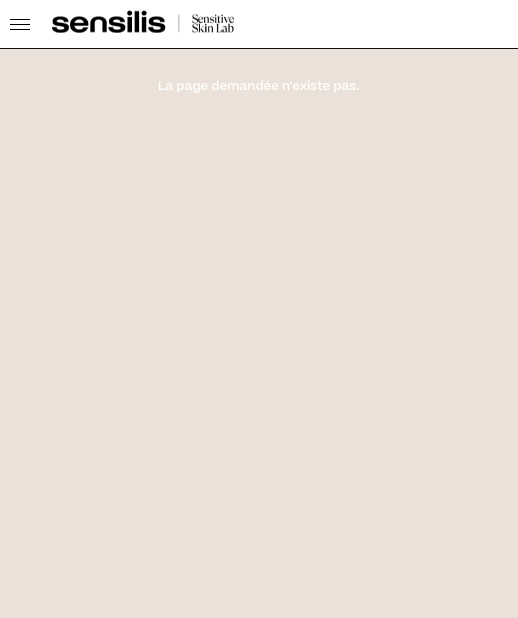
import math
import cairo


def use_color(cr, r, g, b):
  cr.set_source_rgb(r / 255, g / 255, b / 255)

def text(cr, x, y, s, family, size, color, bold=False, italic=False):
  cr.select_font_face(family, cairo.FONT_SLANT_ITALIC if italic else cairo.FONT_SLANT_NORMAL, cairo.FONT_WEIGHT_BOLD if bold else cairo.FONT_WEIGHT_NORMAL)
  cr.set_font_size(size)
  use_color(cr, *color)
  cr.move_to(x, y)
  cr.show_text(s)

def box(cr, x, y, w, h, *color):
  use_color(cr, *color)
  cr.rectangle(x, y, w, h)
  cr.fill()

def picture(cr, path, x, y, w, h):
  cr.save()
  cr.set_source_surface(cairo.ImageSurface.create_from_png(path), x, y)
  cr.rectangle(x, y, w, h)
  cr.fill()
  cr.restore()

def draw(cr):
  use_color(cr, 235, 225, 216)
  cr.paint()
  box(cr, 0, 0, 518, 48, 255, 255, 255)
  box(cr, 0, 48, 518, 1, 18, 18, 18)
  picture(cr, "img_01.png", 10, 19, 21, 11)
  picture(cr, "img_02.png", 52, 10, 182, 23)
  text(cr, 158, 90, "La page demandée n'existe pas.", "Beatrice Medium", 12, (255, 255, 255))


surface = cairo.ImageSurface(cairo.FORMAT_RGB24, 518, 618)
cr = cairo.Context(surface)
options = cairo.FontOptions()
options.set_hint_metrics(cairo.HINT_METRICS_OFF)
options.set_hint_style(cairo.HINT_STYLE_NONE)
cr.set_font_options(options)
cr.set_miter_limit(4)
draw(cr)
surface.write_to_png("out.png")
